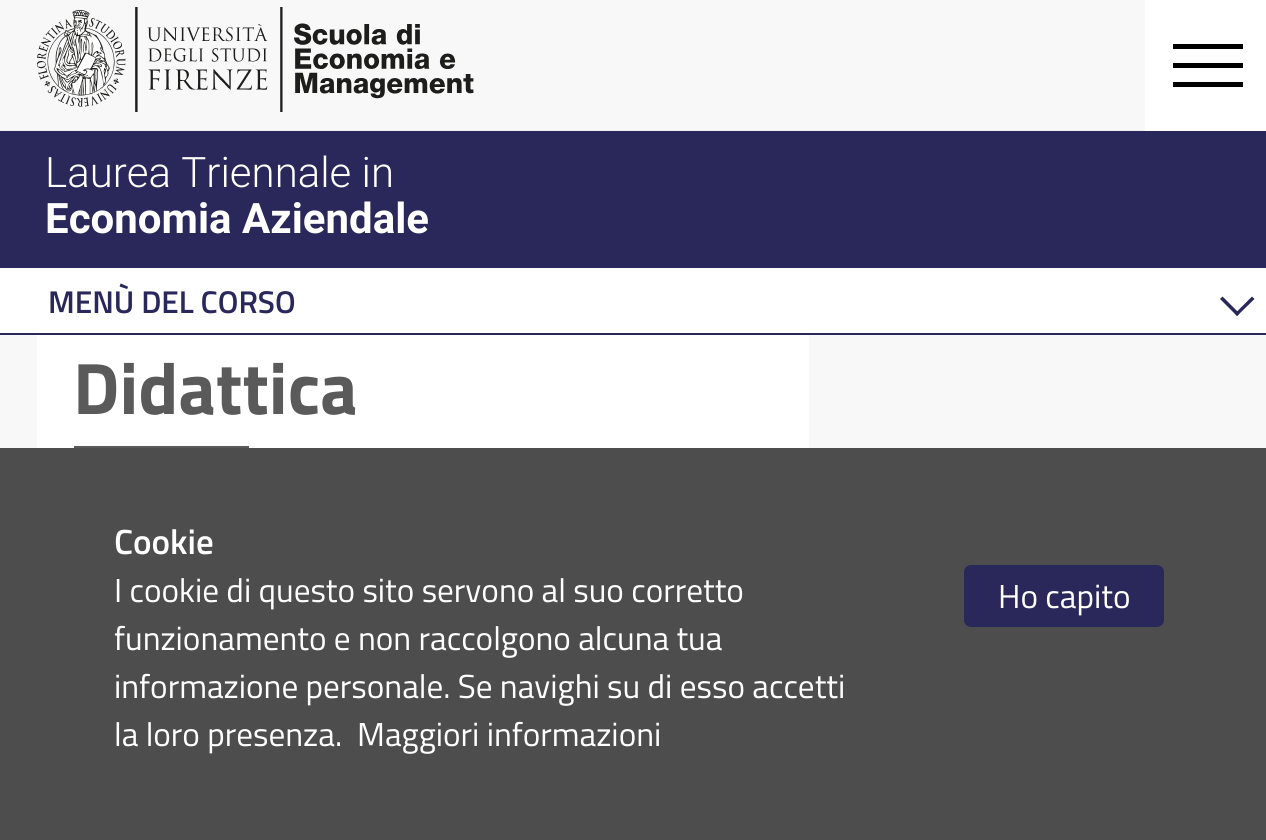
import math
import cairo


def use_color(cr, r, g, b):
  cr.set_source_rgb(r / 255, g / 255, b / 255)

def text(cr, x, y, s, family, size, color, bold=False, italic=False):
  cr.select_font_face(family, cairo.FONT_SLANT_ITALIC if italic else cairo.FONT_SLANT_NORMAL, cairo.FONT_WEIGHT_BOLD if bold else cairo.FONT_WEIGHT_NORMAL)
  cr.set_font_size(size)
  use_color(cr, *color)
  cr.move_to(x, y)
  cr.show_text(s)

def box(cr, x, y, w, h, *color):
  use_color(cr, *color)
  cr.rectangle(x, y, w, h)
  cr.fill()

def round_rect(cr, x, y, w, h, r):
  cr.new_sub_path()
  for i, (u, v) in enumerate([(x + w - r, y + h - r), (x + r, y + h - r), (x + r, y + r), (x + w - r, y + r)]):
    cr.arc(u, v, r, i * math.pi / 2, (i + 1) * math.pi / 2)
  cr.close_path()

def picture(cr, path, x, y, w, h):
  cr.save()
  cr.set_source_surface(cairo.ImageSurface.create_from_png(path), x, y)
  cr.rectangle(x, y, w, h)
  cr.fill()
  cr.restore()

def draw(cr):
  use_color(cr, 248, 248, 248)
  cr.paint()
  box(cr, 1145, 0, 121, 131, 255, 255, 255)
  box(cr, 1173, 44, 70, 5, 0, 0, 0)
  box(cr, 1173, 63, 70, 5, 0, 0, 0)
  box(cr, 1173, 82, 70, 5, 0, 0, 0)
  box(cr, 0, 130, 1145, 1, 240, 240, 240)
  picture(cr, "img_01.png", 37, 7, 437, 105)
  box(cr, 0, 131, 1266, 137, 42, 40, 90)
  box(cr, 0, 268, 1266, 65, 255, 255, 255)
  box(cr, 0, 333, 1266, 2, 42, 40, 90)
  cr.new_path()
  cr.move_to(1252, 296.5)
  cr.line_to(1254.5, 299)
  cr.line_to(1237, 316)
  cr.line_to(1235, 313.5)
  cr.close_path()
  cr.fill()
  cr.new_path()
  cr.move_to(1222.5, 296.5)
  cr.line_to(1239.5, 313.5)
  cr.line_to(1237, 316)
  cr.line_to(1220, 299)
  cr.close_path()
  cr.fill()
  box(cr, 37, 335, 772, 113, 255, 255, 255)
  box(cr, 74, 446, 175, 2, 90, 90, 90)
  box(cr, 0, 448, 1266, 392, 77, 77, 77)
  use_color(cr, 42, 40, 90)
  round_rect(cr, 964, 565, 200, 62, 7)
  cr.fill()
  text(cr, 45, 187, "Laurea Triennale in", "Roboto Light", 42, (255, 255, 255))
  text(cr, 45, 233, "Economia Aziendale", "Roboto", 42, (255, 255, 255), bold=True)
  text(cr, 48, 313, "MENÙ DEL CORSO", "Titillium Web SemiBold", 31.5, (42, 40, 90))
  text(cr, 73, 414, "Didattica", "Titillium Web", 73, (90, 90, 90), bold=True)
  text(cr, 114, 554, "Cookie", "Titillium Web SemiBold", 35, (255, 255, 255))
  text(cr, 114, 602, "I cookie di questo sito servono al suo corretto", "Titillium Web", 33.25, (255, 255, 255))
  text(cr, 114, 650, "funzionamento e non raccolgono alcuna tua", "Titillium Web", 33.25, (255, 255, 255))
  text(cr, 114, 698, "informazione personale. Se navighi su di esso accetti", "Titillium Web", 33.25, (255, 255, 255))
  text(cr, 114, 746, "la loro presenza.", "Titillium Web", 33.25, (255, 255, 255))
  text(cr, 357, 746, "Maggiori informazioni", "Titillium Web", 33.25, (255, 255, 255))
  text(cr, 998, 608, "Ho capito", "Titillium Web", 33.25, (255, 255, 255))


surface = cairo.ImageSurface(cairo.FORMAT_RGB24, 1266, 840)
cr = cairo.Context(surface)
options = cairo.FontOptions()
options.set_hint_metrics(cairo.HINT_METRICS_OFF)
options.set_hint_style(cairo.HINT_STYLE_NONE)
cr.set_font_options(options)
cr.set_miter_limit(4)
draw(cr)
surface.write_to_png("out.png")
